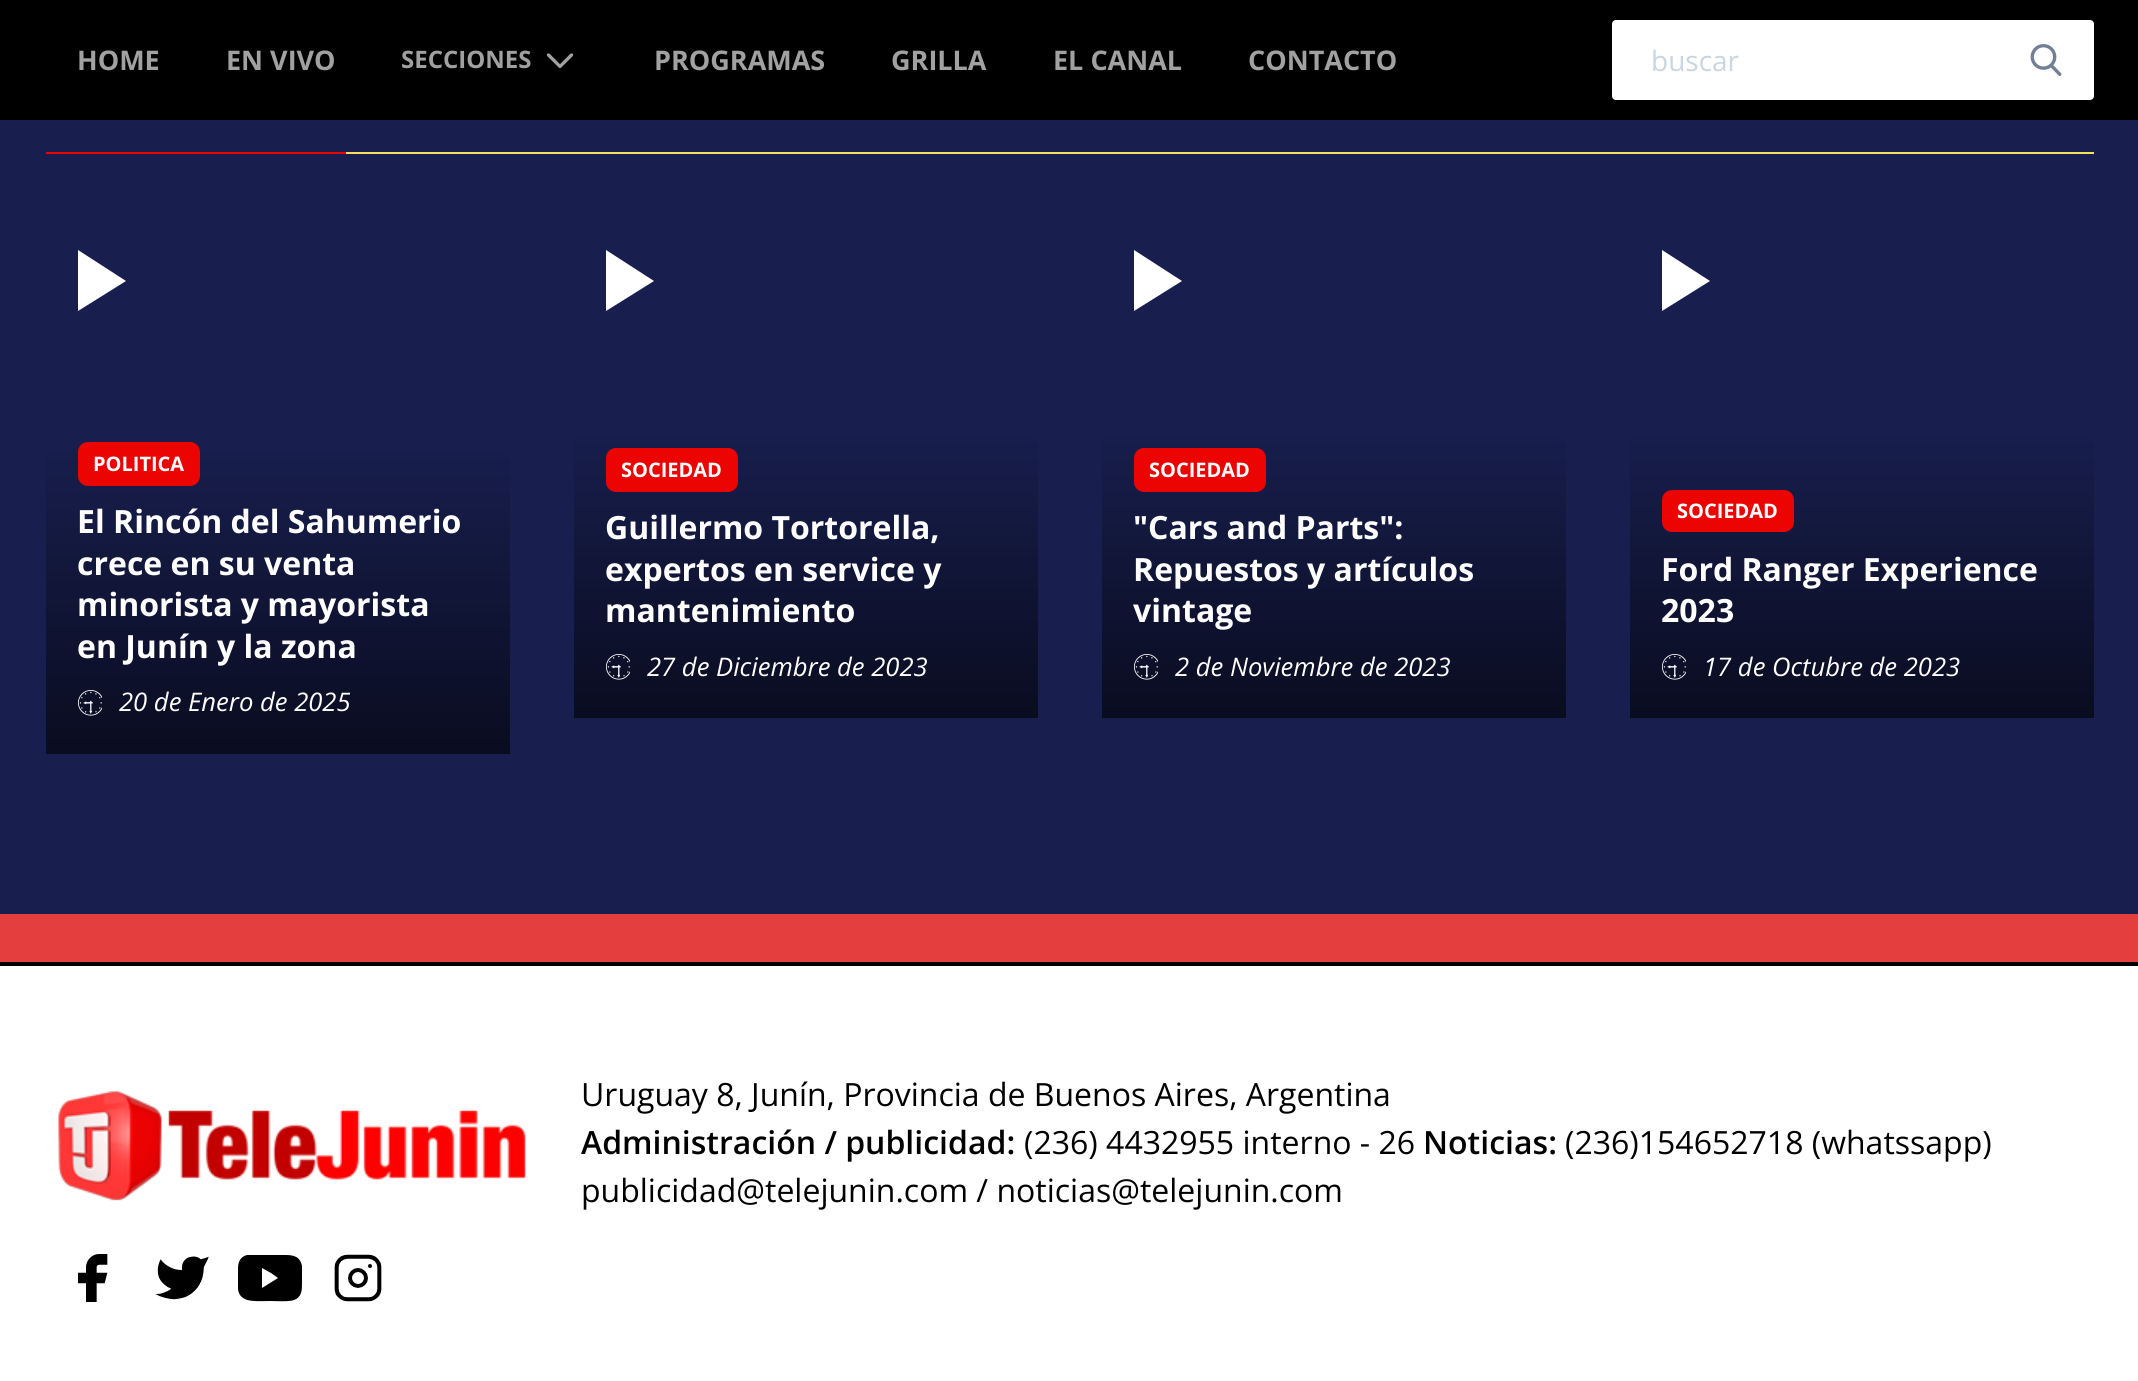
import math
import cairo


def use_color(cr, r, g, b):
  cr.set_source_rgb(r / 255, g / 255, b / 255)

def text(cr, x, y, s, family, size, color, bold=False, italic=False):
  cr.select_font_face(family, cairo.FONT_SLANT_ITALIC if italic else cairo.FONT_SLANT_NORMAL, cairo.FONT_WEIGHT_BOLD if bold else cairo.FONT_WEIGHT_NORMAL)
  cr.set_font_size(size)
  use_color(cr, *color)
  cr.move_to(x, y)
  cr.show_text(s)

def box(cr, x, y, w, h, *color):
  use_color(cr, *color)
  cr.rectangle(x, y, w, h)
  cr.fill()

def round_rect(cr, x, y, w, h, r):
  cr.new_sub_path()
  for i, (u, v) in enumerate([(x + w - r, y + h - r), (x + r, y + h - r), (x + r, y + r), (x + w - r, y + r)]):
    cr.arc(u, v, r, i * math.pi / 2, (i + 1) * math.pi / 2)
  cr.close_path()

def picture(cr, path, x, y, w, h):
  cr.save()
  cr.set_source_surface(cairo.ImageSurface.create_from_png(path), x, y)
  cr.rectangle(x, y, w, h)
  cr.fill()
  cr.restore()

def draw(cr):
  use_color(cr, 255, 255, 255)
  cr.paint()
  box(cr, 0, 0, 2138, 120, 0, 0, 0)
  cr.new_path()
  cr.move_to(571.5, 55)
  cr.line_to(560, 66.5)
  cr.line_to(548.5, 55)
  use_color(cr, 161, 161, 161)
  cr.set_line_width(3.3)
  cr.set_line_cap(cairo.LINE_CAP_ROUND)
  cr.set_line_join(cairo.LINE_JOIN_ROUND)
  cr.stroke()
  use_color(cr, 255, 255, 255)
  round_rect(cr, 1612, 20, 482, 80, 4)
  cr.fill()
  picture(cr, "img_01.png", 2030, 44, 32, 32)
  box(cr, 0, 120, 2138, 794, 24, 31, 79)
  box(cr, 346, 152, 1748, 2, 246, 224, 94)
  box(cr, 46, 152, 300, 2, 235, 4, 2)
  gradient = cairo.LinearGradient(278, 218, 278, 754)
  gradient.add_color_stop_rgba(0.4, 0.094, 0.122, 0.31, 1)
  gradient.add_color_stop_rgba(1, 0.039, 0.047, 0.125, 1)
  cr.set_source(gradient)
  cr.rectangle(46, 450, 464, 304)
  cr.fill()
  use_color(cr, 255, 255, 255)
  cr.new_path()
  cr.move_to(78, 311)
  cr.line_to(126, 281)
  cr.line_to(78, 250)
  cr.close_path()
  cr.fill()
  use_color(cr, 235, 4, 2)
  round_rect(cr, 78, 442, 122, 44, 10)
  cr.fill()
  picture(cr, "img_02.png", 78, 690, 24, 26)
  gradient = cairo.LinearGradient(806, 218, 806, 718)
  gradient.add_color_stop_rgba(0.4, 0.094, 0.122, 0.31, 1)
  gradient.add_color_stop_rgba(1, 0.039, 0.047, 0.125, 1)
  cr.set_source(gradient)
  cr.rectangle(574, 434, 464, 284)
  cr.fill()
  use_color(cr, 255, 255, 255)
  cr.new_path()
  cr.move_to(606, 311)
  cr.line_to(654, 281)
  cr.line_to(606, 250)
  cr.close_path()
  cr.fill()
  use_color(cr, 235, 4, 2)
  round_rect(cr, 606, 448, 132, 44, 10)
  cr.fill()
  picture(cr, "img_03.png", 606, 654, 24, 26)
  gradient = cairo.LinearGradient(1334, 218, 1334, 718)
  gradient.add_color_stop_rgba(0.4, 0.094, 0.122, 0.31, 1)
  gradient.add_color_stop_rgba(1, 0.039, 0.047, 0.125, 1)
  cr.set_source(gradient)
  cr.rectangle(1102, 434, 464, 284)
  cr.fill()
  use_color(cr, 255, 255, 255)
  cr.new_path()
  cr.move_to(1134, 311)
  cr.line_to(1182, 281)
  cr.line_to(1134, 250)
  cr.close_path()
  cr.fill()
  use_color(cr, 235, 4, 2)
  round_rect(cr, 1134, 448, 132, 44, 10)
  cr.fill()
  picture(cr, "img_03.png", 1134, 654, 24, 26)
  gradient = cairo.LinearGradient(1862, 218, 1862, 718)
  gradient.add_color_stop_rgba(0.4, 0.094, 0.122, 0.31, 1)
  gradient.add_color_stop_rgba(1, 0.039, 0.047, 0.125, 1)
  cr.set_source(gradient)
  cr.rectangle(1630, 434, 464, 284)
  cr.fill()
  use_color(cr, 255, 255, 255)
  cr.new_path()
  cr.move_to(1662, 311)
  cr.line_to(1710, 281)
  cr.line_to(1662, 250)
  cr.close_path()
  cr.fill()
  use_color(cr, 235, 4, 2)
  round_rect(cr, 1662, 490, 132, 42, 10)
  cr.fill()
  picture(cr, "img_03.png", 1662, 654, 24, 26)
  box(cr, 0, 914, 2138, 48, 229, 62, 62)
  box(cr, 0, 962, 2138, 4, 0, 0, 0)
  picture(cr, "img_04.png", 58, 1091, 468, 110)
  picture(cr, "img_05.png", 78, 1254, 30, 48)
  picture(cr, "img_06.png", 155, 1256, 54, 44)
  cr.save()
  cr.rectangle(238, 1246, 64, 64)
  cr.clip()
  cr.new_path()
  cr.move_to(247, 1255)
  cr.curve_to(236, 1258, 238, 1269, 238, 1278)
  cr.curve_to(238, 1286, 236, 1295, 245, 1299)
  cr.curve_to(250, 1302, 264, 1301, 270, 1301)
  cr.curve_to(275, 1301, 289, 1302, 294, 1300)
  cr.curve_to(302, 1297, 302, 1290, 302, 1283)
  cr.line_to(302, 1266)
  cr.curve_to(300, 1256, 293, 1255, 285, 1255)
  cr.close_path()
  cr.move_to(271, 1273)
  cr.line_to(278, 1278)
  cr.line_to(262, 1288)
  cr.line_to(262, 1268)
  cr.close_path()
  cr.fill()
  cr.restore()
  picture(cr, "img_07.png", 334, 1254, 48, 48)
  text(cr, 77, 70, "HOME", "Open Sans", 27, (161, 161, 161), bold=True)
  text(cr, 226, 70, "EN VIVO", "Open Sans", 27, (161, 161, 161), bold=True)
  text(cr, 401, 68, "SECCIONES", "Open Sans", 24, (161, 161, 161), bold=True)
  text(cr, 654, 70, "PROGRAMAS", "Open Sans", 27, (161, 161, 161), bold=True)
  text(cr, 891, 70, "GRILLA", "Open Sans", 27, (161, 161, 161), bold=True)
  text(cr, 1053, 70, "EL CANAL", "Open Sans", 27, (161, 161, 161), bold=True)
  text(cr, 1248, 70, "CONTACTO", "Open Sans", 27, (161, 161, 161), bold=True)
  text(cr, 1651, 71, "buscar", "Open Sans", 28, (203, 213, 224))
  text(cr, 93, 471, "POLITICA", "Open Sans", 20, (255, 255, 255), bold=True)
  text(cr, 77, 533, "El Rincón del Sahumerio", "Open Sans", 32, (255, 255, 255), bold=True)
  text(cr, 77, 575, "crece en su venta", "Open Sans", 32, (255, 255, 255), bold=True)
  text(cr, 77, 616, "minorista y mayorista", "Open Sans", 32, (255, 255, 255), bold=True)
  text(cr, 77, 658, "en Junín y la zona", "Open Sans", 32, (255, 255, 255), bold=True)
  text(cr, 119, 711, "20 de Enero de 2025", "Open Sans", 25.6, (255, 255, 255), italic=True)
  text(cr, 621, 477, "SOCIEDAD", "Open Sans", 20, (255, 255, 255), bold=True)
  text(cr, 605, 539, "Guillermo Tortorella,", "Open Sans", 32, (255, 255, 255), bold=True)
  text(cr, 605, 581, "expertos en service y", "Open Sans", 32, (255, 255, 255), bold=True)
  text(cr, 605, 622, "mantenimiento", "Open Sans", 32, (255, 255, 255), bold=True)
  text(cr, 647, 676, "27 de Diciembre de 2023", "Open Sans", 25.6, (255, 255, 255), italic=True)
  text(cr, 1149, 477, "SOCIEDAD", "Open Sans", 20, (255, 255, 255), bold=True)
  text(cr, 1133, 539, "\"Cars and Parts\":", "Open Sans", 32, (255, 255, 255), bold=True)
  text(cr, 1133, 581, "Repuestos y artículos", "Open Sans", 32, (255, 255, 255), bold=True)
  text(cr, 1133, 622, "vintage", "Open Sans", 32, (255, 255, 255), bold=True)
  text(cr, 1175, 676, "2 de Noviembre de 2023", "Open Sans", 25.6, (255, 255, 255), italic=True)
  text(cr, 1677, 518, "SOCIEDAD", "Open Sans", 20, (255, 255, 255), bold=True)
  text(cr, 1661, 581, "Ford Ranger Experience", "Open Sans", 32, (255, 255, 255), bold=True)
  text(cr, 1661, 622, "2023", "Open Sans", 32, (255, 255, 255), bold=True)
  text(cr, 1703, 676, "17 de Octubre de 2023", "Open Sans", 25.6, (255, 255, 255), italic=True)
  text(cr, 581, 1106, "Uruguay 8, Junín, Provincia de Buenos Aires, Argentina", "Open Sans", 32, (0, 0, 0))
  text(cr, 581, 1154, "Administración / publicidad:", "Open Sans SemiBold", 32, (0, 0, 0))
  text(cr, 1024, 1154, "(236) 4432955 interno - 26", "Open Sans", 32, (0, 0, 0))
  text(cr, 1423, 1154, "Noticias:", "Open Sans SemiBold", 32, (0, 0, 0))
  text(cr, 1565, 1154, "(236)154652718 (whatssapp)", "Open Sans", 32, (0, 0, 0))
  text(cr, 581, 1202, "publicidad@telejunin.com / noticias@telejunin.com", "Open Sans", 32, (0, 0, 0))


surface = cairo.ImageSurface(cairo.FORMAT_RGB24, 2138, 1381)
cr = cairo.Context(surface)
options = cairo.FontOptions()
options.set_hint_metrics(cairo.HINT_METRICS_OFF)
options.set_hint_style(cairo.HINT_STYLE_NONE)
cr.set_font_options(options)
cr.set_miter_limit(4)
draw(cr)
surface.write_to_png("out.png")
